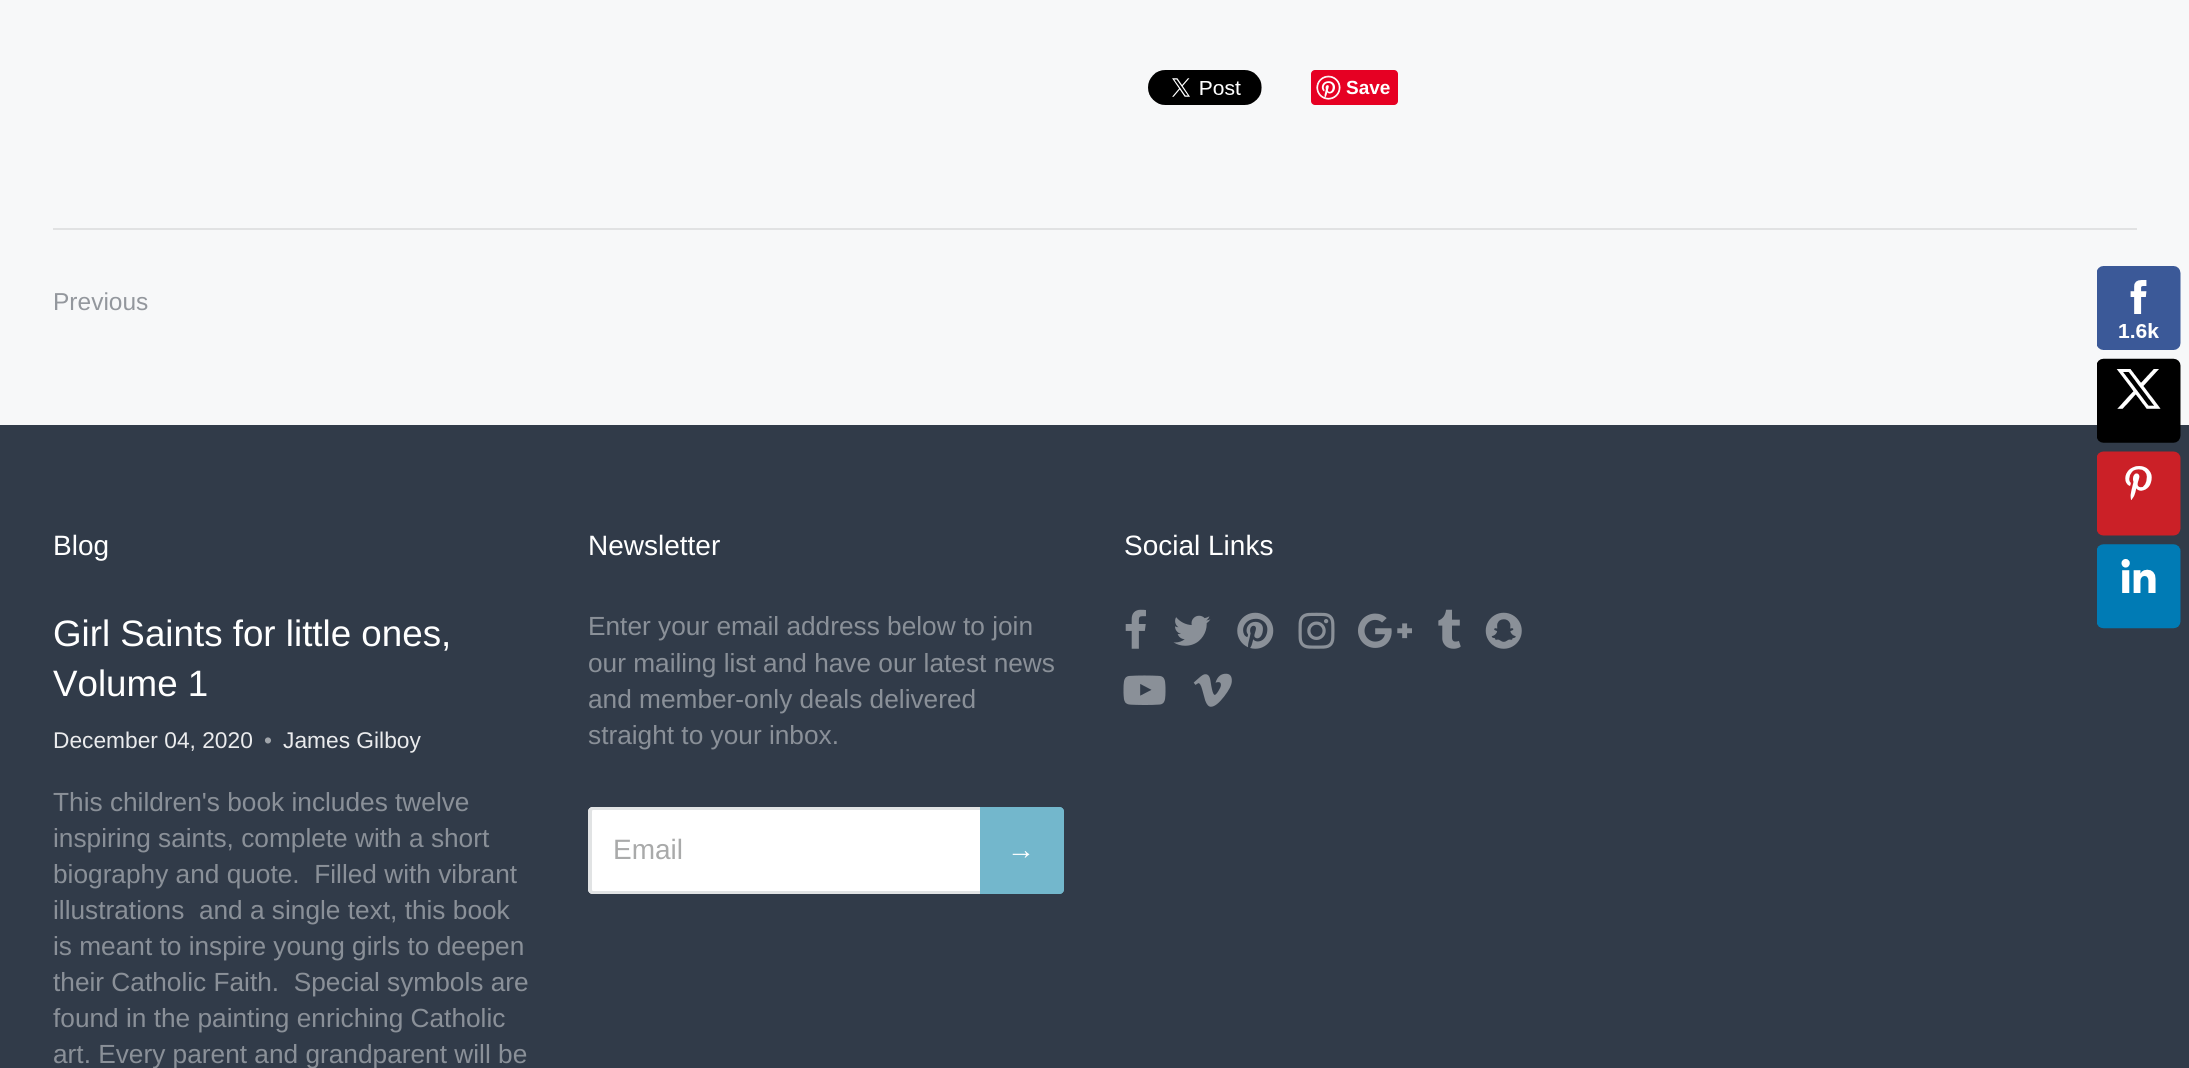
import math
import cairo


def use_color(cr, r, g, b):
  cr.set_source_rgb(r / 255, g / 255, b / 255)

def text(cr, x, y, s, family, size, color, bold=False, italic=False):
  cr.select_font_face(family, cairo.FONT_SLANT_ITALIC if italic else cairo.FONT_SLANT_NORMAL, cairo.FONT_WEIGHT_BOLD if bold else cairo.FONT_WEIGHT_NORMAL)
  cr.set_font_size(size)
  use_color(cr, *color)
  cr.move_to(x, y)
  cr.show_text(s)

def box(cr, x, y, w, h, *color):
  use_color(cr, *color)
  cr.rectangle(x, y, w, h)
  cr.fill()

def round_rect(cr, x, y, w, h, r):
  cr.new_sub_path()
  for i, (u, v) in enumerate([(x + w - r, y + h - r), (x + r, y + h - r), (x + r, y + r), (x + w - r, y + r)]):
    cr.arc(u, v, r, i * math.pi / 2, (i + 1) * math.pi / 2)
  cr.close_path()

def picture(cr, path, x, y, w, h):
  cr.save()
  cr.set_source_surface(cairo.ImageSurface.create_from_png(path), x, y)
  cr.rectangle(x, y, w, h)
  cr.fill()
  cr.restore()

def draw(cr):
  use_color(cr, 247, 248, 249)
  cr.paint()
  picture(cr, "img_01.png", 1148, 70, 114, 35)
  use_color(cr, 230, 0, 35)
  round_rect(cr, 1311, 70, 87, 35, 4)
  cr.fill()
  picture(cr, "img_02.png", 1316, 75, 25, 25)
  box(cr, 53, 228, 2084, 2, 225, 226, 227)
  box(cr, 0, 425, 2189, 643, 49, 59, 73)
  picture(cr, "img_03.png", 2097, 266, 84, 363)
  use_color(cr, 255, 255, 255)
  cr.new_path()
  cr.move_to(593, 807)
  cr.line_to(980, 807)
  cr.line_to(980, 894)
  cr.line_to(593, 894)
  cr.curve_to(590, 894, 588, 892, 588, 889)
  cr.line_to(588, 812)
  cr.curve_to(588, 809, 590, 807, 593, 807)
  cr.close_path()
  cr.fill()
  use_color(cr, 225, 227, 228)
  cr.set_fill_rule(cairo.FILL_RULE_EVEN_ODD)
  cr.new_path()
  cr.move_to(593, 807)
  cr.line_to(980, 807)
  cr.line_to(980, 894)
  cr.line_to(593, 894)
  cr.curve_to(590, 894, 588, 892, 588, 889)
  cr.line_to(588, 812)
  cr.curve_to(588, 809, 590, 807, 593, 807)
  cr.close_path()
  cr.move_to(593, 810)
  cr.line_to(980, 810)
  cr.line_to(980, 891)
  cr.line_to(593, 891)
  cr.curve_to(592, 891, 592, 890, 592, 889)
  cr.line_to(592, 812)
  cr.curve_to(592, 811, 592, 810, 593, 810)
  cr.close_path()
  cr.fill()
  use_color(cr, 115, 183, 204)
  cr.new_path()
  cr.move_to(980, 807)
  cr.line_to(1059, 807)
  cr.curve_to(1062, 807, 1064, 809, 1064, 812)
  cr.line_to(1064, 889)
  cr.curve_to(1064, 892, 1062, 894, 1059, 894)
  cr.line_to(980, 894)
  cr.close_path()
  cr.fill()
  cr.new_path()
  cr.move_to(980, 807)
  cr.line_to(1059, 807)
  cr.curve_to(1062, 807, 1064, 809, 1064, 812)
  cr.line_to(1064, 889)
  cr.curve_to(1064, 892, 1062, 894, 1059, 894)
  cr.line_to(980, 894)
  cr.close_path()
  cr.move_to(980, 810)
  cr.line_to(1059, 810)
  cr.curve_to(1060, 810, 1060, 811, 1060, 812)
  cr.line_to(1060, 889)
  cr.curve_to(1060, 890, 1060, 891, 1059, 891)
  cr.line_to(980, 891)
  cr.close_path()
  cr.fill()
  picture(cr, "img_04.png", 1125, 609, 21, 40)
  picture(cr, "img_05.png", 1173, 615, 38, 31)
  picture(cr, "img_06.png", 1237, 612, 37, 37)
  picture(cr, "img_07.png", 1298, 612, 37, 37)
  picture(cr, "img_08.png", 1358, 613, 54, 35)
  picture(cr, "img_09.png", 1438, 609, 23, 40)
  picture(cr, "img_10.png", 1485, 612, 37, 37)
  picture(cr, "img_11.png", 1123, 675, 43, 30)
  picture(cr, "img_12.png", 1193, 673, 39, 34)
  text(cr, 1346, 94, "Save", "Liberation Sans", 19, (255, 255, 255), bold=True)
  text(cr, 53, 310, "Previous", "Liberation Sans", 24.5, (147, 151, 157))
  text(cr, 53, 555, "Blog", "Liberation Sans", 28, (255, 255, 255))
  text(cr, 53, 646, "Girl Saints for little ones,", "Liberation Sans", 36.75, (255, 255, 255))
  text(cr, 53, 696, "Volume 1", "Liberation Sans", 36.75, (255, 255, 255))
  text(cr, 53, 748, "December 04, 2020", "Liberation Sans", 22.75, (234, 235, 237))
  text(cr, 264, 748, "•", "Liberation Sans", 22.75, (160, 165, 171))
  text(cr, 283, 748, "James Gilboy", "Liberation Sans", 22.75, (234, 235, 237))
  text(cr, 53, 811, "This children's book includes twelve", "Liberation Sans", 26.25, (138, 144, 152))
  text(cr, 53, 847, "inspiring saints, complete with a short", "Liberation Sans", 26.25, (138, 144, 152))
  text(cr, 53, 883, "biography and quote.  Filled with vibrant", "Liberation Sans", 26.25, (138, 144, 152))
  text(cr, 53, 919, "illustrations  and a single text, this book", "Liberation Sans", 26.25, (138, 144, 152))
  text(cr, 53, 955, "is meant to inspire young girls to deepen", "Liberation Sans", 26.25, (138, 144, 152))
  text(cr, 53, 991, "their Catholic Faith.  Special symbols are", "Liberation Sans", 26.25, (138, 144, 152))
  text(cr, 53, 1027, "found in the painting enriching Catholic", "Liberation Sans", 26.25, (138, 144, 152))
  text(cr, 53, 1063, "art. Every parent and grandparent will be", "Liberation Sans", 26.25, (138, 144, 152))
  text(cr, 588, 555, "Newsletter", "Liberation Sans", 28, (255, 255, 255))
  text(cr, 588, 635, "Enter your email address below to join", "Liberation Sans", 26.25, (138, 144, 152))
  text(cr, 588, 672, "our mailing list and have our latest news", "Liberation Sans", 26.25, (138, 144, 152))
  text(cr, 588, 708, "and member-only deals delivered", "Liberation Sans", 26.25, (138, 144, 152))
  text(cr, 588, 744, "straight to your inbox.", "Liberation Sans", 26.25, (138, 144, 152))
  text(cr, 613, 859, "Email", "Liberation Sans", 28, (169, 170, 170))
  text(cr, 1007, 859, "→", "Liberation Sans", 28, (255, 255, 255))
  text(cr, 1124, 555, "Social Links", "Liberation Sans", 28, (255, 255, 255))


surface = cairo.ImageSurface(cairo.FORMAT_RGB24, 2189, 1068)
cr = cairo.Context(surface)
options = cairo.FontOptions()
options.set_hint_metrics(cairo.HINT_METRICS_OFF)
options.set_hint_style(cairo.HINT_STYLE_NONE)
cr.set_font_options(options)
cr.set_miter_limit(4)
draw(cr)
surface.write_to_png("out.png")
